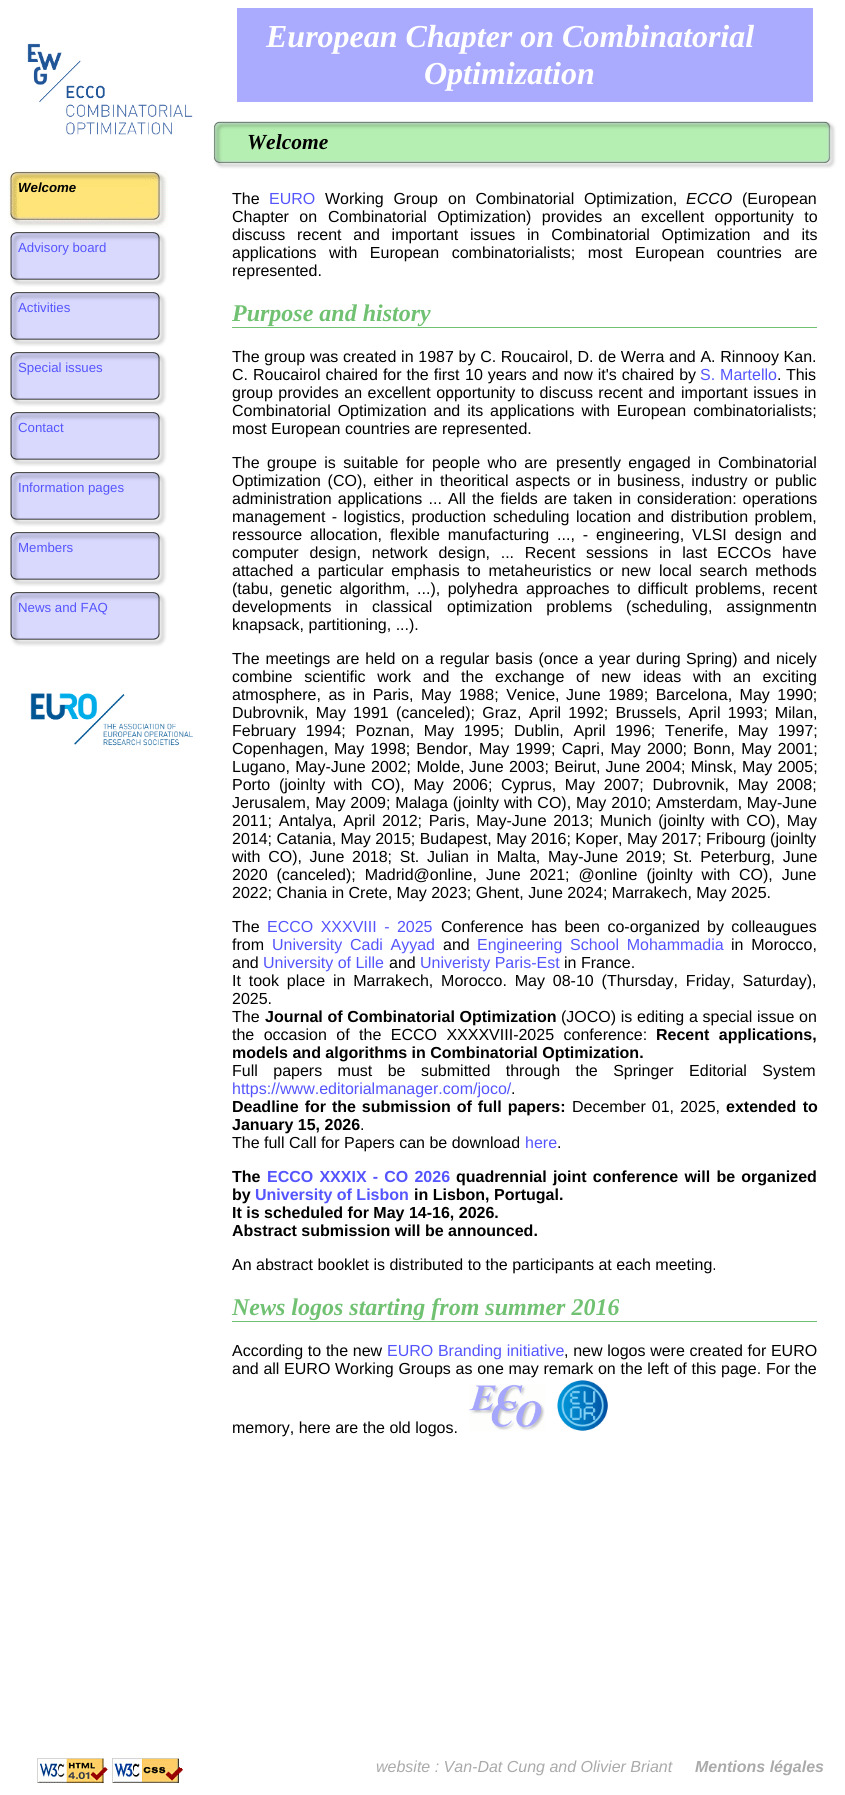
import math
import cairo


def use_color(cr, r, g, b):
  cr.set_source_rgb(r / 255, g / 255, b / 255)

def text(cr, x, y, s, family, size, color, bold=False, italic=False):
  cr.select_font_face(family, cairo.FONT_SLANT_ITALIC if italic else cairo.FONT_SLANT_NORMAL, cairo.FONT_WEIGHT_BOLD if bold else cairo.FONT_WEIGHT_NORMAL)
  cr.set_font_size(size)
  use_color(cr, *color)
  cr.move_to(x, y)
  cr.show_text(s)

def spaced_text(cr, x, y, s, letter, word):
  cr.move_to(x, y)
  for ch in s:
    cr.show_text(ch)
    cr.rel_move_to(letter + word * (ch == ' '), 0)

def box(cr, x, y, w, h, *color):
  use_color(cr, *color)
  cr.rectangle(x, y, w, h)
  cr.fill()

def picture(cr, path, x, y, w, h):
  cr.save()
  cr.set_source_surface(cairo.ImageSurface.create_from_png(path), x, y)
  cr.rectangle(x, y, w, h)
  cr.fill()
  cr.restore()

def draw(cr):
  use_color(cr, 255, 255, 255)
  cr.paint()
  picture(cr, "img_01.png", 27, 43, 166, 92)
  box(cr, 237, 8, 576, 94, 170, 170, 255)
  picture(cr, "img_02.png", 213, 121, 24, 48)
  picture(cr, "img_03.png", 237, 121, 576, 48)
  picture(cr, "img_04.png", 813, 121, 23, 48)
  picture(cr, "img_05.png", 8, 170, 160, 58)
  picture(cr, "img_06.png", 10, 232, 157, 55)
  picture(cr, "img_06.png", 10, 292, 157, 55)
  picture(cr, "img_06.png", 10, 352, 157, 55)
  picture(cr, "img_06.png", 10, 412, 157, 55)
  picture(cr, "img_06.png", 10, 472, 157, 55)
  picture(cr, "img_06.png", 10, 532, 157, 55)
  picture(cr, "img_06.png", 10, 592, 157, 55)
  picture(cr, "img_07.png", 30, 693, 163, 53)
  box(cr, 232, 327, 585, 1, 113, 193, 114)
  box(cr, 232, 1321, 585, 1, 113, 193, 114)
  picture(cr, "img_08.png", 469, 1384, 76, 47)
  picture(cr, "img_09.png", 557, 1380, 51, 51)
  picture(cr, "img_10.png", 37, 1758, 71, 25)
  picture(cr, "img_11.png", 112, 1758, 71, 25)
  text(cr, 266, 47, "European Chapter on Combinatorial", "Liberation Serif", 32, (255, 255, 255), bold=True, italic=True)
  text(cr, 424, 84, "Optimization", "Liberation Serif", 32, (255, 255, 255), bold=True, italic=True)
  text(cr, 247, 149, "Welcome", "Liberation Serif", 21.5, (0, 0, 0), bold=True, italic=True)
  text(cr, 18, 192, "Welcome", "Liberation Sans", 13.25, (0, 0, 0), bold=True, italic=True)
  text(cr, 18, 252, "Advisory board", "Liberation Sans", 13.25, (85, 85, 255))
  text(cr, 18, 312, "Activities", "Liberation Sans", 13.25, (85, 85, 255))
  text(cr, 18, 372, "Special issues", "Liberation Sans", 13.25, (85, 85, 255))
  text(cr, 18, 432, "Contact", "Liberation Sans", 13.25, (85, 85, 255))
  text(cr, 18, 492, "Information pages", "Liberation Sans", 13.25, (85, 85, 255))
  text(cr, 18, 552, "Members", "Liberation Sans", 13.25, (85, 85, 255))
  text(cr, 18, 612, "News and FAQ", "Liberation Sans", 13.25, (85, 85, 255))
  text(cr, 232, 204, "The", "Liberation Sans", 16, (0, 0, 0))
  text(cr, 269, 204, "EURO", "Liberation Sans", 16, (85, 85, 255))
  use_color(cr, 0, 0, 0)
  spaced_text(cr, 325, 204, "Working Group", 0, 5.25)
  spaced_text(cr, 448, 204, "on Combinatorial Optimization,", 0, 5.25)
  text(cr, 686, 204, "ECCO", "Liberation Sans", 16, (0, 0, 0), italic=True)
  text(cr, 742, 204, "(European", "Liberation Sans", 16, (0, 0, 0))
  spaced_text(cr, 232, 222, "Chapter on", 0, 6)
  spaced_text(cr, 328, 222, "Combinatorial Optimization) provides an excellent opportunity to", 0, 6)
  spaced_text(cr, 232, 240, "discuss recent and important issues in Combinatorial Optimization", 0, 7.25)
  spaced_text(cr, 763, 240, "and its", 0, 7.25)
  spaced_text(cr, 232, 258, "applications with European combinatorialists; most", 0, 8)
  spaced_text(cr, 635, 258, "European countries are", 0, 8)
  text(cr, 232, 276, "represented.", "Liberation Sans", 16, (0, 0, 0))
  text(cr, 232, 321, "Purpose and history", "Liberation Serif", 24, (113, 193, 114), bold=True, italic=True)
  cr.select_font_face("Liberation Sans")
  cr.set_font_size(16)
  use_color(cr, 0, 0, 0)
  spaced_text(cr, 232, 362, "The group was created in 1987 by C. Roucairol, D. de Werra and A. Rinnooy Kan.", 0, 0.25)
  spaced_text(cr, 232, 380, "C. Roucairol chaired for the first", 0, 0.5)
  spaced_text(cr, 465, 380, "10 years and now it's chaired by", 0, 0.5)
  use_color(cr, 85, 85, 255)
  spaced_text(cr, 700, 380, "S. Martello", 0, 0.5)
  text(cr, 777, 380, ". This", "Liberation Sans", 16, (0, 0, 0))
  spaced_text(cr, 232, 398, "group provides an excellent opportunity to discuss recent and", 0, 1)
  spaced_text(cr, 681, 398, "important issues in", 0, 1)
  spaced_text(cr, 232, 416, "Combinatorial Optimization and its", 0, 2.5)
  spaced_text(cr, 490, 416, "applications with European combinatorialists;", 0, 2.5)
  text(cr, 232, 434, "most European countries are represented.", "Liberation Sans", 16, (0, 0, 0))
  spaced_text(cr, 232, 468, "The groupe is suitable for people who are", 0, 3)
  spaced_text(cr, 556, 468, "presently engaged in Combinatorial", 0, 3)
  spaced_text(cr, 232, 486, "Optimization (CO), either in", 0, 2.25)
  spaced_text(cr, 440, 486, "theoritical aspects or in business, industry or public", 0, 2.25)
  spaced_text(cr, 232, 504, "administration applications ... All the fields are taken in", 0, 1.75)
  spaced_text(cr, 637, 504, "consideration: operations", 0, 1.5)
  spaced_text(cr, 232, 522, "management - logistics, production", 0, 2)
  spaced_text(cr, 493, 522, "scheduling location and distribution problem,", 0, 2)
  text(cr, 232, 540, "ressource", "Liberation Sans", 16, (0, 0, 0))
  spaced_text(cr, 310, 540, "allocation, flexible manufacturing ..., - engineering, VLSI design", 0, 3.5)
  text(cr, 790, 540, "and", "Liberation Sans", 16, (0, 0, 0))
  spaced_text(cr, 232, 558, "computer design, network design, ... Recent sessions in last", 0, 6.25)
  spaced_text(cr, 717, 558, "ECCOs have", 0, 6.25)
  spaced_text(cr, 232, 576, "attached a particular emphasis to metaheuristics or new", 0, 3.25)
  spaced_text(cr, 659, 576, "local search methods", 0, 3.25)
  spaced_text(cr, 232, 594, "(tabu, genetic algorithm, ...), polyhedra", 0, 3)
  spaced_text(cr, 526, 594, "approaches to difficult problems, recent", 0, 3)
  spaced_text(cr, 232, 612, "developments in classical", 0, 9.5)
  spaced_text(cr, 447, 612, "optimization problems (scheduling, assignmentn", 0, 9.5)
  text(cr, 232, 630, "knapsack, partitioning, ...).", "Liberation Sans", 16, (0, 0, 0))
  spaced_text(cr, 232, 664, "The meetings are held on a regular basis (once a year during", 0, 1.4)
  spaced_text(cr, 686, 664, "Spring) and nicely", 0, 1.4)
  spaced_text(cr, 232, 682, "combine scientific work and the exchange of new", 0, 7.25)
  spaced_text(cr, 643, 682, "ideas with an exciting", 0, 7.25)
  spaced_text(cr, 232, 700, "atmosphere, as in Paris, May 1988; Venice,", 0, 3)
  spaced_text(cr, 566, 700, "June 1989; Barcelona, May 1990;", 0, 3)
  spaced_text(cr, 232, 718, "Dubrovnik, May 1991 (canceled); Graz,", 0, 2.75)
  spaced_text(cr, 529, 718, "April 1992; Brussels, April 1993; Milan,", 0, 2.75)
  spaced_text(cr, 232, 736, "February 1994; Poznan, May 1995;", 0, 5.25)
  spaced_text(cr, 514, 736, "Dublin, April 1996; Tenerife, May 1997;", 0, 5.25)
  spaced_text(cr, 232, 754, "Copenhagen, May 1998; Bendor,", 0, 1.5)
  spaced_text(cr, 479, 754, "May 1999; Capri, May 2000; Bonn, May 2001;", 0, 1.75)
  spaced_text(cr, 232, 772, "Lugano, May-June 2002; Molde,", 0, 1)
  spaced_text(cr, 469, 772, "June 2003; Beirut, June 2004; Minsk, May 2005;", 0, 0.75)
  spaced_text(cr, 232, 790, "Porto (joinlty with CO), May 2006;", 0, 4.25)
  spaced_text(cr, 501, 790, "Cyprus, May 2007; Dubrovnik, May 2008;", 0, 4.25)
  spaced_text(cr, 232, 808, "Jerusalem, May 2009; Malaga (joinlty with CO), May 2010;", 0, 0.5)
  text(cr, 656, 808, "Amsterdam, May-June", "Liberation Sans", 16, (0, 0, 0))
  spaced_text(cr, 232, 826, "2011; Antalya, April 2012; Paris, May-June 2013;", 0, 2.25)
  spaced_text(cr, 600, 826, "Munich (joinlty with CO), May", 0, 2.25)
  text(cr, 232, 844, "2014; Catania, May 2015; Budapest, May 2016; Koper, May 2017; Fribourg (joinlty", "Liberation Sans", 16, (0, 0, 0))
  spaced_text(cr, 232, 862, "with CO), June 2018; St. Julian in Malta, May-June 2019;", 0, 3.25)
  spaced_text(cr, 673, 862, "St. Peterburg, June", 0, 3.25)
  spaced_text(cr, 232, 880, "2020 (canceled); Madrid@online, June 2021; @online (joinlty with CO), June", 0, 4.5)
  text(cr, 232, 898, "2022; Chania in Crete, May 2023; Ghent, June 2024; Marrakech, May 2025.", "Liberation Sans", 16, (0, 0, 0))
  text(cr, 232, 932, "The", "Liberation Sans", 16, (0, 0, 0))
  use_color(cr, 85, 85, 255)
  spaced_text(cr, 267, 932, "ECCO XXXVIII - 2025", 0, 3)
  use_color(cr, 0, 0, 0)
  spaced_text(cr, 441, 932, "Conference has been co-organized", 0, 3)
  spaced_text(cr, 707, 932, "by colleaugues", 0, 3)
  text(cr, 232, 950, "from", "Liberation Sans", 16, (0, 0, 0))
  use_color(cr, 85, 85, 255)
  spaced_text(cr, 272, 950, "University Cadi Ayyad", 0, 3.25)
  text(cr, 443, 950, "and", "Liberation Sans", 16, (0, 0, 0))
  use_color(cr, 85, 85, 255)
  spaced_text(cr, 477, 950, "Engineering School Mohammadia", 0, 3.25)
  use_color(cr, 0, 0, 0)
  spaced_text(cr, 731, 950, "in Morocco,", 0, 3.25)
  text(cr, 232, 968, "and", "Liberation Sans", 16, (0, 0, 0))
  text(cr, 263, 968, "University of Lille", "Liberation Sans", 16, (85, 85, 255))
  text(cr, 389, 968, "and", "Liberation Sans", 16, (0, 0, 0))
  text(cr, 420, 968, "Univeristy Paris-Est", "Liberation Sans", 16, (85, 85, 255))
  text(cr, 564, 968, "in France.", "Liberation Sans", 16, (0, 0, 0))
  spaced_text(cr, 232, 986, "It took place in Marrakech, Morocco. May 08-10 (Thursday, Friday, Saturday),", 0, 3.4)
  text(cr, 232, 1004, "2025.", "Liberation Sans", 16, (0, 0, 0))
  text(cr, 232, 1022, "The", "Liberation Sans", 16, (0, 0, 0))
  cr.select_font_face("Liberation Sans", cairo.FONT_SLANT_NORMAL, cairo.FONT_WEIGHT_BOLD)
  spaced_text(cr, 265, 1022, "Journal of Combinatorial Optimization", 0, 0.25)
  cr.select_font_face("Liberation Sans")
  spaced_text(cr, 561, 1022, "(JOCO) is editing a special issue on", 0, 0.25)
  spaced_text(cr, 232, 1040, "the occasion of the ECCO XXXXVIII-2025 conference:", 0, 5)
  cr.select_font_face("Liberation Sans", cairo.FONT_SLANT_NORMAL, cairo.FONT_WEIGHT_BOLD)
  spaced_text(cr, 656, 1040, "Recent applications,", 0, 5)
  text(cr, 232, 1058, "models and algorithms in Combinatorial Optimization.", "Liberation Sans", 16, (0, 0, 0), bold=True)
  cr.select_font_face("Liberation Sans")
  spaced_text(cr, 232, 1076, "Full papers must be submitted through the Springer Editorial System", 0, 11)
  text(cr, 232, 1094, "https://www.editorialmanager.com/joco/", "Liberation Sans", 16, (85, 85, 255))
  text(cr, 511, 1094, ".", "Liberation Sans", 16, (0, 0, 0))
  cr.select_font_face("Liberation Sans", cairo.FONT_SLANT_NORMAL, cairo.FONT_WEIGHT_BOLD)
  spaced_text(cr, 232, 1112, "Deadline for the submission of full papers:", 0, 1.5)
  cr.select_font_face("Liberation Sans")
  spaced_text(cr, 572, 1112, "December 01, 2025,", 0, 1.5)
  cr.select_font_face("Liberation Sans", cairo.FONT_SLANT_NORMAL, cairo.FONT_WEIGHT_BOLD)
  spaced_text(cr, 726, 1112, "extended to", 0, 2)
  text(cr, 232, 1130, "January 15, 2026", "Liberation Sans", 16, (0, 0, 0), bold=True)
  text(cr, 360, 1130, ".", "Liberation Sans", 16, (0, 0, 0))
  text(cr, 232, 1148, "The full Call for Papers can be download", "Liberation Sans", 16, (0, 0, 0))
  text(cr, 525, 1148, "here", "Liberation Sans", 16, (85, 85, 255))
  text(cr, 557, 1148, ".", "Liberation Sans", 16, (0, 0, 0))
  text(cr, 232, 1182, "The", "Liberation Sans", 16, (0, 0, 0), bold=True)
  use_color(cr, 85, 85, 255)
  spaced_text(cr, 267, 1182, "ECCO XXXIX - CO 2026", 0, 1.75)
  use_color(cr, 0, 0, 0)
  spaced_text(cr, 456, 1182, "quadrennial joint conference will be organized", 0, 1.75)
  text(cr, 232, 1200, "by", "Liberation Sans", 16, (0, 0, 0), bold=True)
  text(cr, 255, 1200, "University of Lisbon", "Liberation Sans", 16, (85, 85, 255), bold=True)
  text(cr, 414, 1200, "in Lisbon, Portugal.", "Liberation Sans", 16, (0, 0, 0), bold=True)
  text(cr, 232, 1218, "It is scheduled for May 14-16, 2026.", "Liberation Sans", 16, (0, 0, 0), bold=True)
  text(cr, 232, 1236, "Abstract submission will be announced.", "Liberation Sans", 16, (0, 0, 0), bold=True)
  text(cr, 232, 1270, "An abstract booklet is distributed to the participants at each meeting.", "Liberation Sans", 16, (0, 0, 0))
  text(cr, 232, 1315, "News logos starting from summer 2016", "Liberation Serif", 24, (113, 193, 114), bold=True, italic=True)
  cr.select_font_face("Liberation Sans")
  cr.set_font_size(16)
  use_color(cr, 0, 0, 0)
  spaced_text(cr, 232, 1356, "According to the new", 0, 0.25)
  use_color(cr, 85, 85, 255)
  spaced_text(cr, 387, 1356, "EURO Branding initiative", 0, 0.25)
  use_color(cr, 0, 0, 0)
  spaced_text(cr, 564, 1356, ", new logos were created for EURO", 0, 0.25)
  spaced_text(cr, 232, 1374, "and all EURO Working Groups as one may remark on the left of this page.", 0, 0.25)
  text(cr, 766, 1374, "For the", "Liberation Sans", 16, (0, 0, 0))
  text(cr, 232, 1433, "memory, here are the old logos.", "Liberation Sans", 16, (0, 0, 0))
  text(cr, 376, 1772, "website : Van-Dat Cung and Olivier Briant", "Liberation Sans", 16, (170, 170, 170), italic=True)
  text(cr, 695, 1772, "Mentions légales", "Liberation Sans", 16, (170, 170, 170), bold=True, italic=True)


surface = cairo.ImageSurface(cairo.FORMAT_RGB24, 845, 1795)
cr = cairo.Context(surface)
options = cairo.FontOptions()
options.set_hint_metrics(cairo.HINT_METRICS_OFF)
options.set_hint_style(cairo.HINT_STYLE_NONE)
cr.set_font_options(options)
cr.set_miter_limit(4)
draw(cr)
surface.write_to_png("out.png")
